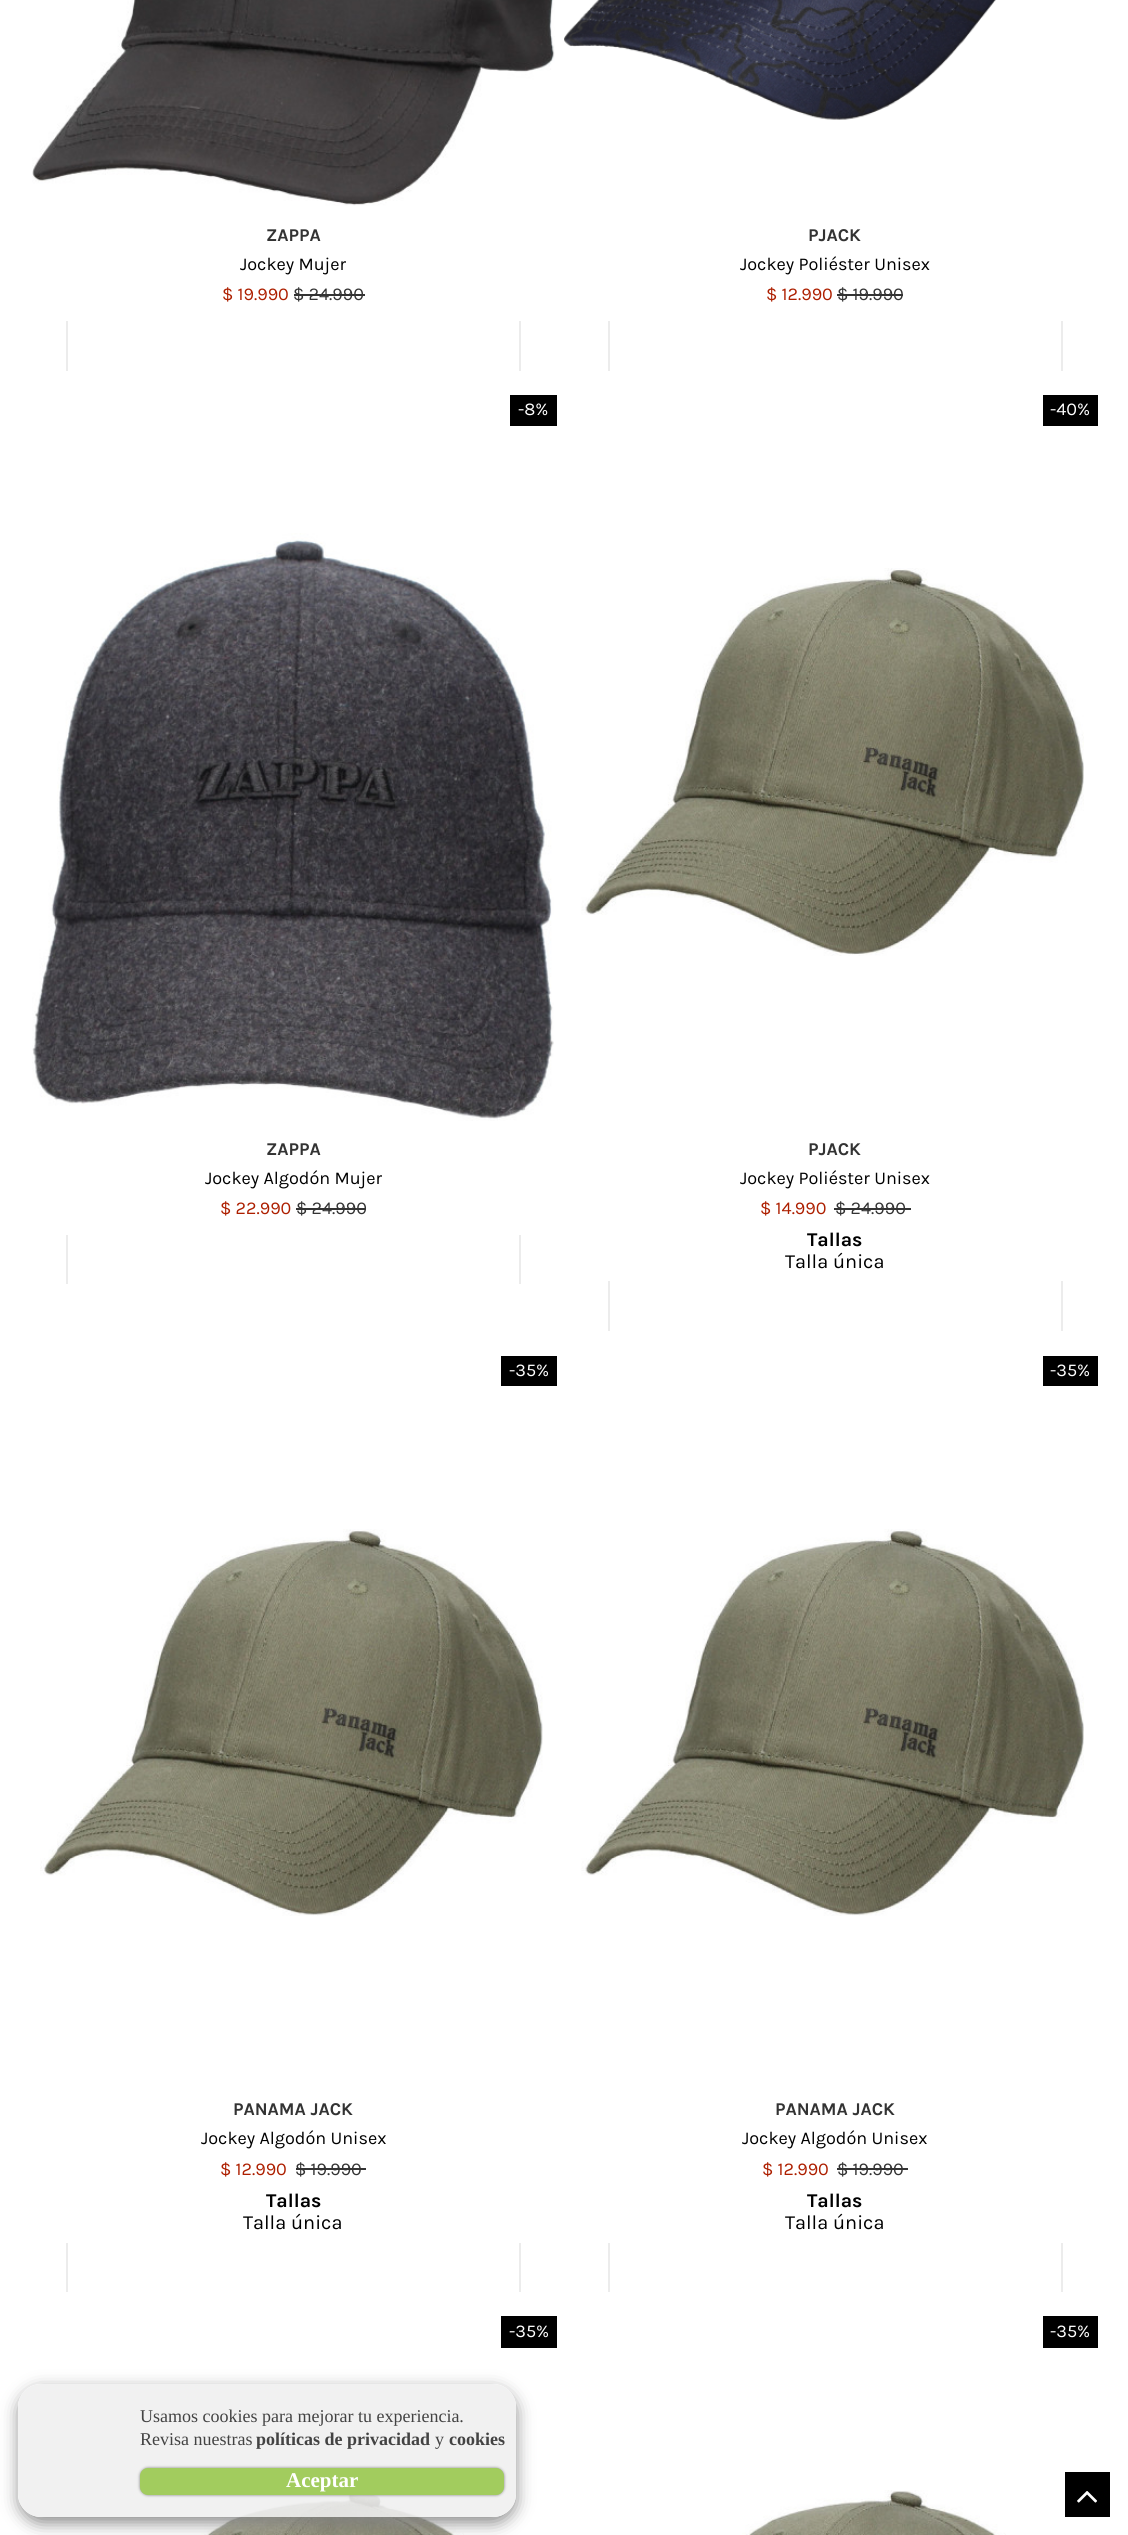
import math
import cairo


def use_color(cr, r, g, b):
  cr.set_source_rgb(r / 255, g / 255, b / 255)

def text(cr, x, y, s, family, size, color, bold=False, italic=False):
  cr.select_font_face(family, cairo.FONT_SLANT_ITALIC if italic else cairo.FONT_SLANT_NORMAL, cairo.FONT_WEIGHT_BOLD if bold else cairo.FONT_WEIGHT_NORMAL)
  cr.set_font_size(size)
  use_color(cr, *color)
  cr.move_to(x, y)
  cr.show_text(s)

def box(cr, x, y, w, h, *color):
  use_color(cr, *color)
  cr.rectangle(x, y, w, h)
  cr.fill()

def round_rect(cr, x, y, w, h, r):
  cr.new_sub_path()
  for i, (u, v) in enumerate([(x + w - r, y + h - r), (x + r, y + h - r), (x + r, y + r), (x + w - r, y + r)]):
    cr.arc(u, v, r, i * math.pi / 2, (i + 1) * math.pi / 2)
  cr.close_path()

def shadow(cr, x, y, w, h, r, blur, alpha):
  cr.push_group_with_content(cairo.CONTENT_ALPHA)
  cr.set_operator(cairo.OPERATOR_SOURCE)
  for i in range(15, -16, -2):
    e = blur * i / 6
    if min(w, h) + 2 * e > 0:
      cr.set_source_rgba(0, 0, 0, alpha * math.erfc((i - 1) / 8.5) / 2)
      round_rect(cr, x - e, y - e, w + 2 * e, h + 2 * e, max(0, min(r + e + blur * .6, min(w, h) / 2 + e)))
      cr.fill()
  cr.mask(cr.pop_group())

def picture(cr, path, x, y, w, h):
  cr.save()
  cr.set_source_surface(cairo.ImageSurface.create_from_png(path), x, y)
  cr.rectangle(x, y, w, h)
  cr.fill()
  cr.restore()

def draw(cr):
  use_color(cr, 255, 255, 255)
  cr.paint()
  picture(cr, "img_01.png", 32, 0, 523, 206)
  box(cr, 294, 294, 71, 2, 51, 51, 51)
  box(cr, 519, 321, 2, 50, 236, 236, 236)
  box(cr, 66, 321, 2, 50, 236, 236, 236)
  picture(cr, "img_02.png", 564, 0, 432, 120)
  box(cr, 837, 294, 66, 2, 51, 51, 51)
  box(cr, 1061, 321, 2, 50, 236, 236, 236)
  box(cr, 608, 321, 2, 50, 236, 236, 236)
  box(cr, 510, 395, 47, 31, 0, 0, 0)
  picture(cr, "img_03.png", 32, 533, 522, 588)
  box(cr, 296, 1208, 70, 2, 51, 51, 51)
  box(cr, 519, 1235, 2, 49, 236, 236, 236)
  box(cr, 66, 1235, 2, 49, 236, 236, 236)
  box(cr, 1043, 395, 55, 31, 0, 0, 0)
  picture(cr, "img_04.png", 581, 568, 503, 388)
  box(cr, 834, 1208, 77, 2, 51, 51, 51)
  box(cr, 1061, 1281, 2, 50, 236, 236, 236)
  box(cr, 608, 1281, 2, 50, 236, 236, 236)
  box(cr, 501, 1356, 56, 30, 0, 0, 0)
  picture(cr, "img_05.png", 40, 1529, 503, 387)
  box(cr, 296, 2168, 70, 2, 51, 51, 51)
  box(cr, 519, 2243, 2, 49, 236, 236, 236)
  box(cr, 66, 2243, 2, 49, 236, 236, 236)
  box(cr, 1043, 1356, 55, 30, 0, 0, 0)
  picture(cr, "img_06.png", 581, 1529, 503, 387)
  box(cr, 837, 2168, 71, 2, 51, 51, 51)
  box(cr, 1061, 2243, 2, 49, 236, 236, 236)
  box(cr, 608, 2243, 2, 49, 236, 236, 236)
  box(cr, 501, 2316, 56, 32, 0, 0, 0)
  picture(cr, "img_07.png", 201, 2495, 263, 40)
  box(cr, 1043, 2316, 55, 32, 0, 0, 0)
  picture(cr, "img_08.png", 742, 2490, 264, 45)
  cr.save()
  cr.set_fill_rule(cairo.FILL_RULE_EVEN_ODD)
  cr.new_path()
  cr.move_to(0, 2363)
  cr.line_to(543, 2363)
  cr.line_to(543, 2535)
  cr.line_to(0, 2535)
  cr.close_path()
  cr.move_to(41, 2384)
  cr.line_to(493, 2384)
  cr.curve_to(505.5, 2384, 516, 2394.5, 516, 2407)
  cr.line_to(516, 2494)
  cr.curve_to(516, 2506.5, 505.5, 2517, 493, 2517)
  cr.line_to(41, 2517)
  cr.curve_to(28.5, 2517, 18, 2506.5, 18, 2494)
  cr.line_to(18, 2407)
  cr.curve_to(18, 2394.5, 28.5, 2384, 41, 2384)
  cr.close_path()
  cr.clip()
  use_color(cr, 128, 128, 128)
  shadow(cr, 20, 2391, 495, 131, 21, 9, 1)
  cr.restore()
  cr.set_source_rgba(0.941, 0.941, 0.941, 0.88)
  round_rect(cr, 18, 2384, 498, 133, 23)
  cr.fill()
  use_color(cr, 128, 128, 128)
  shadow(cr, 140, 2468, 364, 27, 8, 1.5, 1)
  use_color(cr, 162, 204, 94)
  round_rect(cr, 140, 2468, 364, 27, 8)
  cr.fill()
  box(cr, 1065, 2472, 45, 45, 0, 0, 0)
  picture(cr, "img_09.png", 1077, 2491, 20, 12)
  text(cr, 266, 241, "ZAPPA", "Karla", 18, (51, 51, 51), bold=True)
  text(cr, 240, 270, "Jockey Mujer", "Karla", 18, (0, 0, 0))
  text(cr, 222, 300, "$ 19.990", "Karla", 18, (173, 31, 0))
  text(cr, 293, 300, "$ 24.990", "Karla", 18, (51, 51, 51))
  text(cr, 808, 241, "PJACK", "Karla", 18, (51, 51, 51), bold=True)
  text(cr, 740, 270, "Jockey Poliéster Unisex", "Karla", 18, (0, 0, 0))
  text(cr, 766, 300, "$ 12.990", "Karla", 18, (173, 31, 0))
  text(cr, 837, 300, "$ 19.990", "Karla", 18, (51, 51, 51))
  text(cr, 518, 415, "-8%", "Karla", 18, (255, 255, 255))
  text(cr, 266, 1155, "ZAPPA", "Karla", 18, (51, 51, 51), bold=True)
  text(cr, 205, 1184, "Jockey Algodón Mujer", "Karla", 18, (0, 0, 0))
  text(cr, 220, 1214, "$ 22.990", "Karla", 18, (173, 31, 0))
  text(cr, 296, 1214, "$ 24.990", "Karla", 18, (51, 51, 51))
  text(cr, 1050, 415, "-40%", "Karla", 18, (255, 255, 255))
  text(cr, 808, 1155, "PJACK", "Karla", 18, (51, 51, 51), bold=True)
  text(cr, 740, 1184, "Jockey Poliéster Unisex", "Karla", 18, (0, 0, 0))
  text(cr, 760, 1214, "$ 14.990", "Karla", 18, (173, 31, 0))
  text(cr, 835, 1214, "$ 24.990", "Karla", 18, (51, 51, 51))
  text(cr, 807, 1246, "Tallas", "Karla", 19.5, (0, 0, 0), bold=True)
  text(cr, 785, 1268, "Talla única", "Karla", 20, (0, 0, 0))
  text(cr, 509, 1376, "-35%", "Karla", 18, (255, 255, 255))
  text(cr, 233, 2115, "PANAMA JACK", "Karla", 18, (51, 51, 51), bold=True)
  text(cr, 201, 2144, "Jockey Algodón Unisex", "Karla", 18, (0, 0, 0))
  text(cr, 220, 2175, "$ 12.990", "Karla", 18, (173, 31, 0))
  text(cr, 295, 2175, "$ 19.990", "Karla", 18, (51, 51, 51))
  text(cr, 266, 2207, "Tallas", "Karla", 19.5, (0, 0, 0), bold=True)
  text(cr, 243, 2229, "Talla única", "Karla", 20, (0, 0, 0))
  text(cr, 1050, 1376, "-35%", "Karla", 18, (255, 255, 255))
  text(cr, 775, 2115, "PANAMA JACK", "Karla", 18, (51, 51, 51), bold=True)
  text(cr, 742, 2144, "Jockey Algodón Unisex", "Karla", 18, (0, 0, 0))
  text(cr, 762, 2175, "$ 12.990", "Karla", 18, (173, 31, 0))
  text(cr, 837, 2175, "$ 19.990", "Karla", 18, (51, 51, 51))
  text(cr, 807, 2207, "Tallas", "Karla", 19.5, (0, 0, 0), bold=True)
  text(cr, 785, 2229, "Talla única", "Karla", 20, (0, 0, 0))
  text(cr, 509, 2337, "-35%", "Karla", 18, (255, 255, 255))
  text(cr, 1050, 2337, "-35%", "Karla", 18, (255, 255, 255))
  text(cr, 140, 2422, "Usamos cookies para mejorar tu experiencia.", "Liberation Serif", 18, (67, 67, 67))
  text(cr, 140, 2445, "Revisa nuestras", "Liberation Serif", 18, (67, 67, 67))
  text(cr, 256, 2445, "políticas de privacidad", "Liberation Serif", 18, (67, 67, 67), bold=True)
  text(cr, 435, 2445, "y", "Liberation Serif", 18, (67, 67, 67))
  text(cr, 449, 2445, "cookies", "Liberation Serif", 18, (67, 67, 67), bold=True)
  text(cr, 286, 2487, "Aceptar", "Liberation Serif", 21, (255, 255, 255), bold=True)


surface = cairo.ImageSurface(cairo.FORMAT_RGB24, 1128, 2535)
cr = cairo.Context(surface)
options = cairo.FontOptions()
options.set_hint_metrics(cairo.HINT_METRICS_OFF)
options.set_hint_style(cairo.HINT_STYLE_NONE)
cr.set_font_options(options)
cr.set_miter_limit(4)
draw(cr)
surface.write_to_png("out.png")
